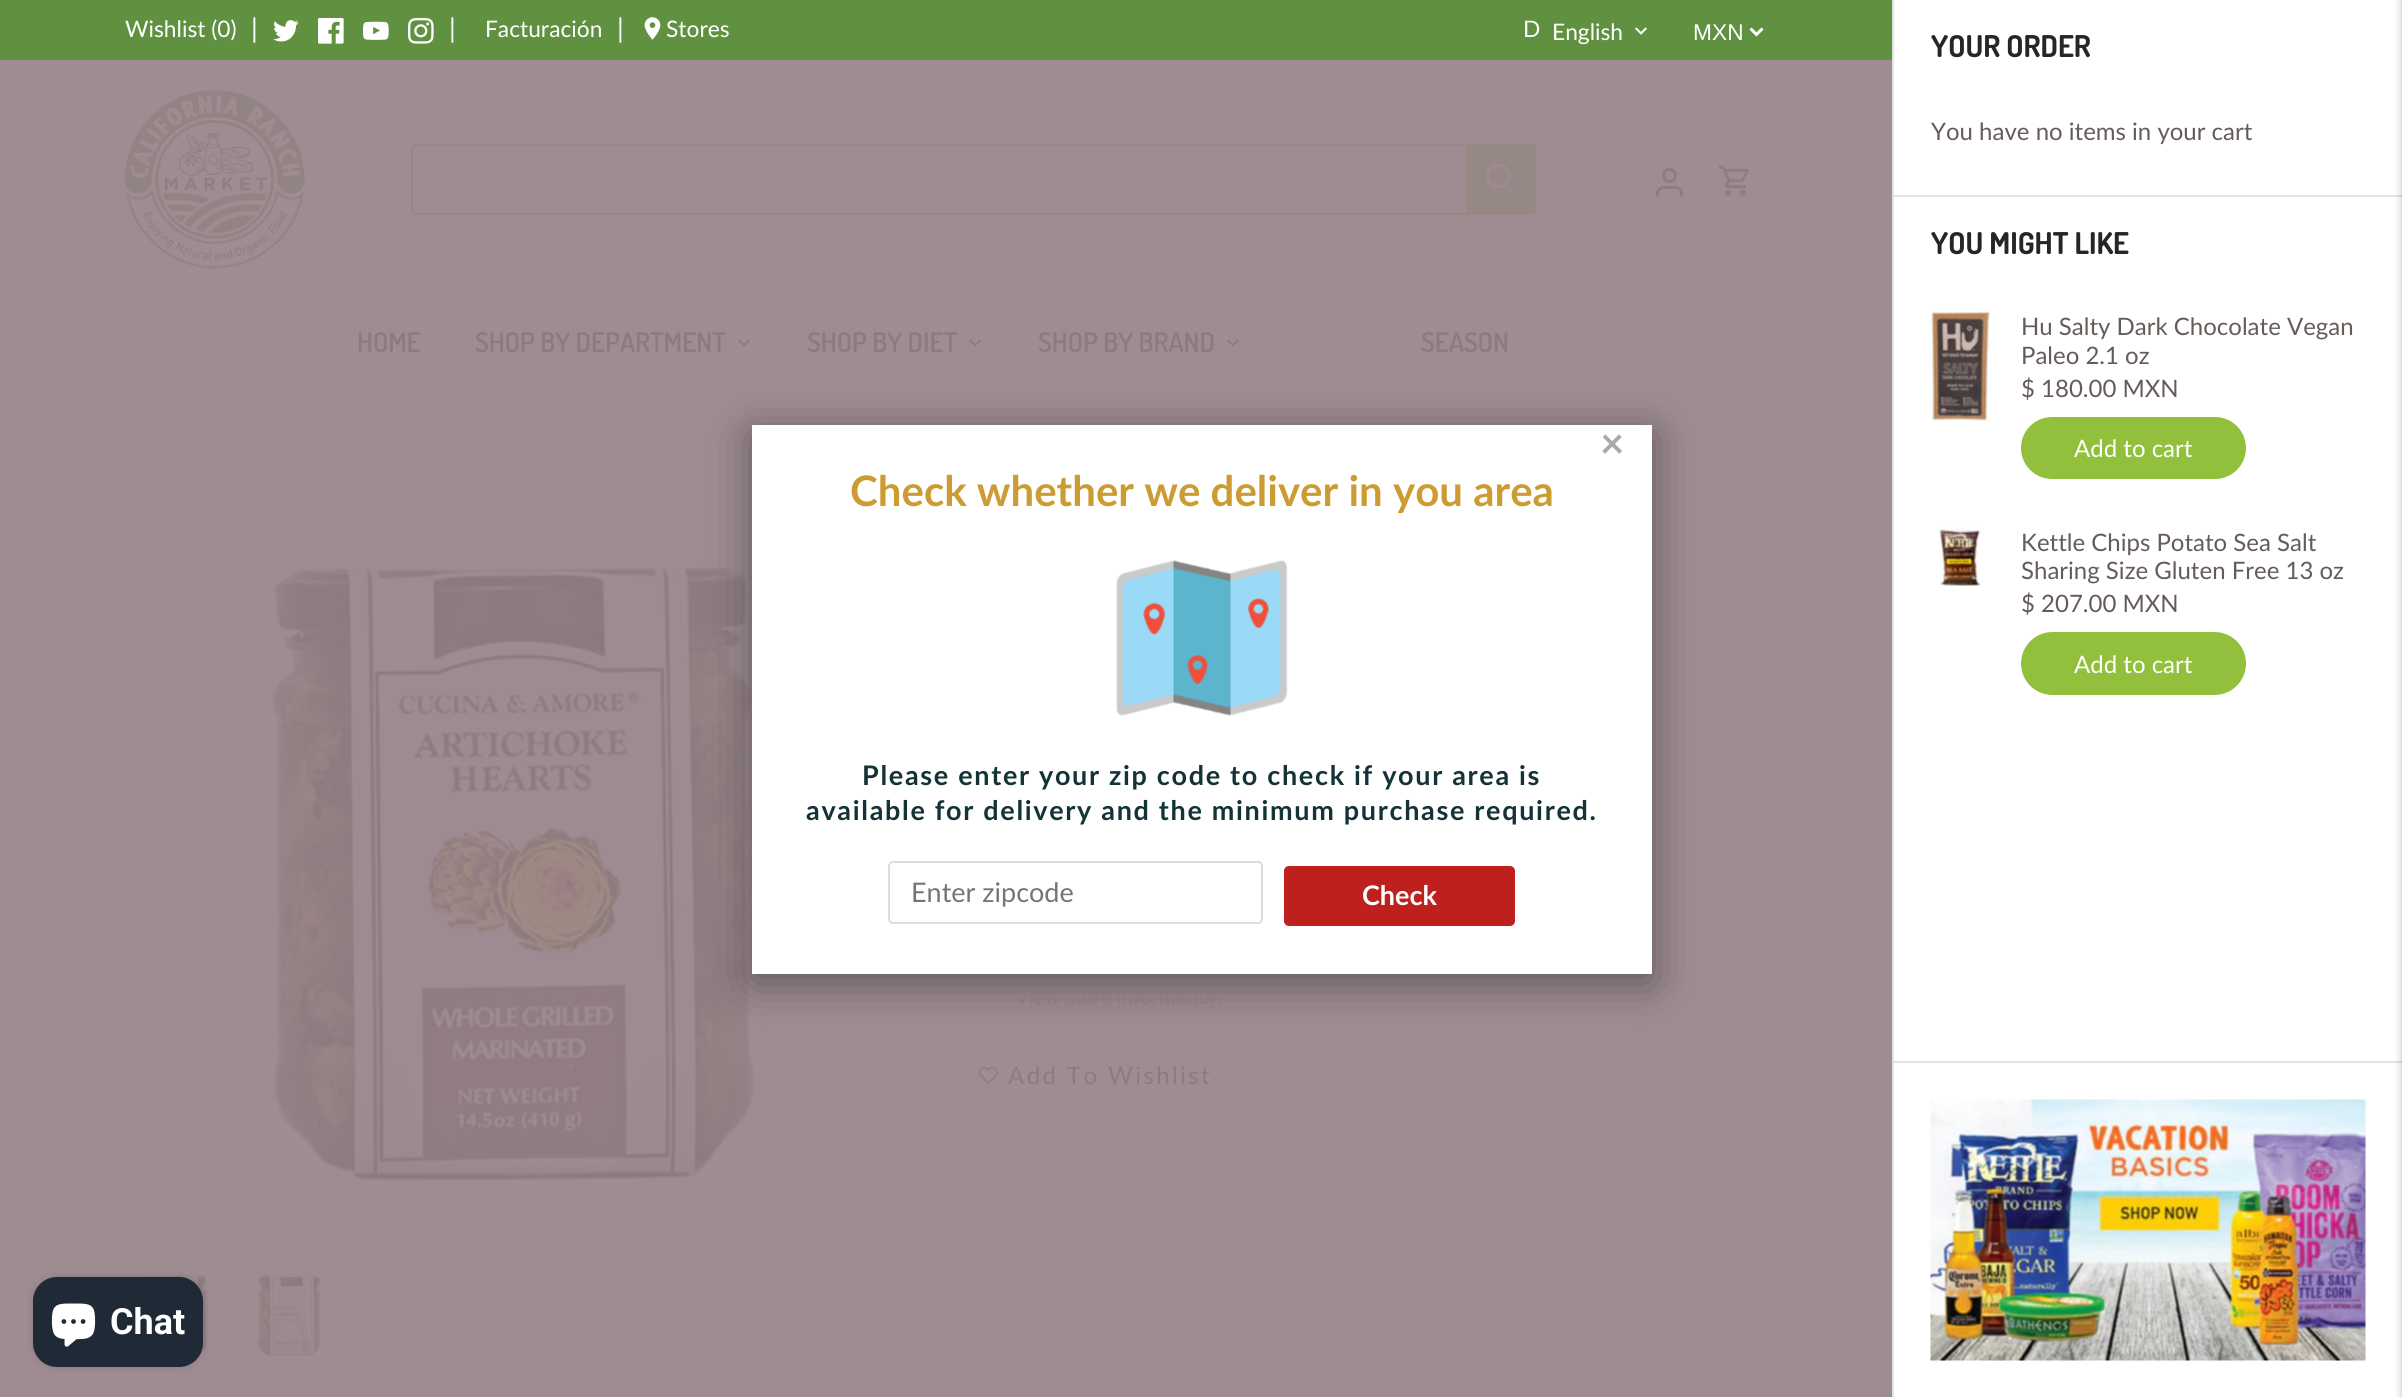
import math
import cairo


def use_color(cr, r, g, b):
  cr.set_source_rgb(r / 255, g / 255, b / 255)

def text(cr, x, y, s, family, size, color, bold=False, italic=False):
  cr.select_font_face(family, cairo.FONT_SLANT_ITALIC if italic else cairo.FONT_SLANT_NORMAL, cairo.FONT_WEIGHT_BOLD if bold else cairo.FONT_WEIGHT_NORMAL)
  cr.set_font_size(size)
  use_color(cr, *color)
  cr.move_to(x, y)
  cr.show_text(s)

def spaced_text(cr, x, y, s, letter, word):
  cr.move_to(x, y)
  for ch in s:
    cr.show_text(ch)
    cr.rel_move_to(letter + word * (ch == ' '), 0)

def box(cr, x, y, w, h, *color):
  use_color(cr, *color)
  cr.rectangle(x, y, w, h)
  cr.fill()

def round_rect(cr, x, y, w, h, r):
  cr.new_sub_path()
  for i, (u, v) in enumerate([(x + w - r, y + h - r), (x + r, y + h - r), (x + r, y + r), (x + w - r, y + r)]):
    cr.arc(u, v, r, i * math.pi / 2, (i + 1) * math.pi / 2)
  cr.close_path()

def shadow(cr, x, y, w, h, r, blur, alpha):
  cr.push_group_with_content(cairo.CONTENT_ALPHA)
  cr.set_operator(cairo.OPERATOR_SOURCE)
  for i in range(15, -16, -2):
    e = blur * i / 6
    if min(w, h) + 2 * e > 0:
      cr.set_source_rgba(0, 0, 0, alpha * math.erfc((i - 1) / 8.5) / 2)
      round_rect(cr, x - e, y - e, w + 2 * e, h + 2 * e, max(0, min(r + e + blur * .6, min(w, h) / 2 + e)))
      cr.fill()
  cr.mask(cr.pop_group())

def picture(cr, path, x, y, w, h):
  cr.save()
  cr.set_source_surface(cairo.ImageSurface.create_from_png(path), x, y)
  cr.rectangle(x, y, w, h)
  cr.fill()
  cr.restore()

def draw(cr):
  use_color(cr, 158, 140, 146)
  cr.paint()
  box(cr, 0, 0, 1892, 60, 96, 145, 64)
  picture(cr, "img_01.png", 273, 20, 26, 22)
  picture(cr, "img_02.png", 318, 18, 26, 26)
  picture(cr, "img_03.png", 363, 21, 26, 19)
  picture(cr, "img_04.png", 408, 18, 26, 26)
  picture(cr, "img_05.png", 644, 17, 17, 23)
  picture(cr, "img_06.png", 1635, 27, 12, 8)
  cr.new_path()
  cr.move_to(1750.5, 28.5)
  cr.line_to(1756.5, 34.5)
  cr.line_to(1762.5, 28.5)
  use_color(cr, 255, 255, 255)
  cr.set_line_width(3)
  cr.stroke()
  picture(cr, "img_07.png", 124, 90, 181, 179)
  round_rect(cr, 412, 145, 1123, 69, 4)
  use_color(cr, 150, 136, 132)
  cr.set_line_width(2)
  cr.stroke()
  cr.new_path()
  cr.move_to(1466, 146)
  cr.line_to(1532, 146)
  cr.curve_to(1533.5, 146, 1535, 147.5, 1535, 149)
  cr.line_to(1535, 210)
  cr.curve_to(1535, 211.5, 1533.5, 213, 1532, 213)
  cr.line_to(1466, 213)
  cr.close_path()
  cr.fill()
  picture(cr, "img_08.png", 1486, 164, 28, 30)
  cr.arc(1669.5, 175.5, 6, 0, 2 * math.pi)
  use_color(cr, 142, 124, 131)
  cr.set_line_width(3)
  cr.stroke()
  cr.new_path()
  cr.move_to(1681.5, 196.5)
  cr.line_to(1681.5, 192.5)
  cr.curve_to(1680, 186.5, 1674, 187.5, 1669.5, 187.5)
  cr.curve_to(1665, 187.5, 1659, 186.5, 1657.5, 192.5)
  cr.line_to(1657.5, 196.5)
  cr.stroke()
  picture(cr, "img_09.png", 1719, 165, 30, 31)
  picture(cr, "img_10.png", 738, 339, 12, 8)
  picture(cr, "img_10.png", 969, 339, 12, 8)
  picture(cr, "img_10.png", 1227, 339, 12, 8)
  picture(cr, "img_12.png", 271, 565, 485, 618)
  use_color(cr, 0, 0, 0)
  shadow(cr, 752, 434, 900, 549, 0, 22.5, 0.4)
  box(cr, 752, 425, 900, 549, 255, 255, 255)
  picture(cr, "img_11.png", 1116, 560, 172, 156)
  round_rect(cr, 889, 862, 373, 61, 4)
  use_color(cr, 223, 221, 220)
  cr.set_line_width(2)
  cr.stroke()
  use_color(cr, 190, 32, 30)
  round_rect(cr, 1284, 866, 231, 60, 5)
  cr.fill()
  picture(cr, "img_13.png", 143, 1274, 65, 83)
  picture(cr, "img_14.png", 257, 1274, 65, 84)
  picture(cr, "img_15.png", 979, 1067, 19, 17)
  box(cr, 1894, 0, 508, 1397, 255, 255, 255)
  box(cr, 1892, 0, 2, 1397, 226, 226, 226)
  box(cr, 1893, 195, 509, 2, 226, 226, 226)
  picture(cr, "img_16.png", 1930, 310, 60, 111)
  use_color(cr, 146, 192, 60)
  round_rect(cr, 2022.5, 418.5, 222, 59, 29.5)
  cr.fill_preserve()
  cr.set_line_width(3)
  cr.stroke()
  picture(cr, "img_17.png", 1939, 527, 45, 59)
  round_rect(cr, 2022.5, 633.5, 222, 60, 30)
  cr.fill_preserve()
  cr.stroke()
  box(cr, 1893, 1061, 509, 2, 226, 226, 226)
  picture(cr, "img_18.png", 1930, 1099, 436, 262)
  use_color(cr, 0, 0, 0)
  shadow(cr, 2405, 0, 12, 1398, 0, 5, 0.5)
  shadow(cr, 33, 1277, 170, 90, 24, 4, 0.15)
  use_color(cr, 32, 42, 54)
  round_rect(cr, 33, 1277, 170, 90, 24)
  cr.fill()
  picture(cr, "img_19.png", 51, 1303, 45, 44)
  text(cr, 125, 37, "Wishlist (0)", "Lato", 22.75, (255, 255, 255))
  text(cr, 251, 38, "|", "Lato", 27, (255, 255, 255))
  text(cr, 449, 38, "|", "Lato", 27, (255, 255, 255))
  text(cr, 485, 37, "Facturación", "Lato", 22.75, (255, 255, 255))
  text(cr, 617, 38, "|", "Lato", 27, (255, 255, 255))
  text(cr, 666, 37, "Stores", "Lato", 22.75, (255, 255, 255))
  text(cr, 1523, 37, "D", "Lato", 22.75, (255, 255, 255))
  text(cr, 1552, 40, "English", "Lato", 22.75, (255, 255, 255))
  text(cr, 1693, 40, "MXN", "Liberation Sans", 22.75, (255, 255, 255))
  text(cr, 357, 352, "HOME", "Dosis SemiBold", 27, (139, 122, 128))
  text(cr, 475, 352, "SHOP BY DEPARTMENT", "Dosis SemiBold", 27, (139, 122, 128))
  text(cr, 807, 352, "SHOP BY DIET", "Dosis SemiBold", 27, (139, 122, 128))
  text(cr, 1038, 352, "SHOP BY BRAND", "Dosis SemiBold", 27, (139, 122, 128))
  text(cr, 1421, 352, "SEASON", "Dosis SemiBold", 27, (139, 122, 128))
  text(cr, 1600, 458, "×", "Lato", 42, (170, 170, 170), bold=True)
  text(cr, 850, 506, "Check whether we deliver in you area", "Lato", 42, (204, 156, 51), bold=True)
  cr.set_font_size(27)
  use_color(cr, 19, 51, 55)
  spaced_text(cr, 862, 785, "Please enter your zip code to check if your area is", 1.68, 0)
  spaced_text(cr, 806, 820, "available for delivery and the minimum purchase required.", 1.68, 0)
  text(cr, 911, 902, "Enter zipcode", "Lato", 27, (117, 117, 117))
  text(cr, 1362, 905, "Check", "Lato", 27, (255, 255, 255), bold=True)
  text(cr, 1015, 1004, "View store information", "Lato", 20.4, (139, 122, 128))
  cr.set_font_size(24)
  spaced_text(cr, 1008, 1084, "Add To Wishlist", 2.4, 0)
  text(cr, 1931, 57, "YOUR ORDER", "Dosis", 30, (38, 38, 38), bold=True)
  text(cr, 1931, 140, "You have no items in your cart", "Lato", 24, (101, 92, 89))
  text(cr, 1931, 254, "YOU MIGHT LIKE", "Dosis", 30, (38, 38, 38), bold=True)
  text(cr, 2021, 335, "Hu Salty Dark Chocolate Vegan", "Lato", 24, (101, 92, 89))
  text(cr, 2021, 364, "Paleo 2.1 oz", "Lato", 24, (101, 92, 89))
  text(cr, 2021, 397, "$ 180.00 MXN", "Lato", 24, (101, 92, 89))
  text(cr, 2074, 457, "Add to cart", "Lato", 24, (255, 255, 255))
  text(cr, 2021, 551, "Kettle Chips Potato Sea Salt", "Lato", 24, (101, 92, 89))
  text(cr, 2021, 579, "Sharing Size Gluten Free 13 oz", "Lato", 24, (101, 92, 89))
  text(cr, 2021, 612, "$ 207.00 MXN", "Lato", 24, (101, 92, 89))
  text(cr, 2074, 673, "Add to cart", "Lato", 24, (255, 255, 255))
  text(cr, 110, 1334, "Chat", "Roboto", 36, (255, 255, 255), bold=True)


surface = cairo.ImageSurface(cairo.FORMAT_RGB24, 2402, 1397)
cr = cairo.Context(surface)
options = cairo.FontOptions()
options.set_hint_metrics(cairo.HINT_METRICS_OFF)
options.set_hint_style(cairo.HINT_STYLE_NONE)
cr.set_font_options(options)
cr.set_miter_limit(4)
draw(cr)
surface.write_to_png("out.png")
